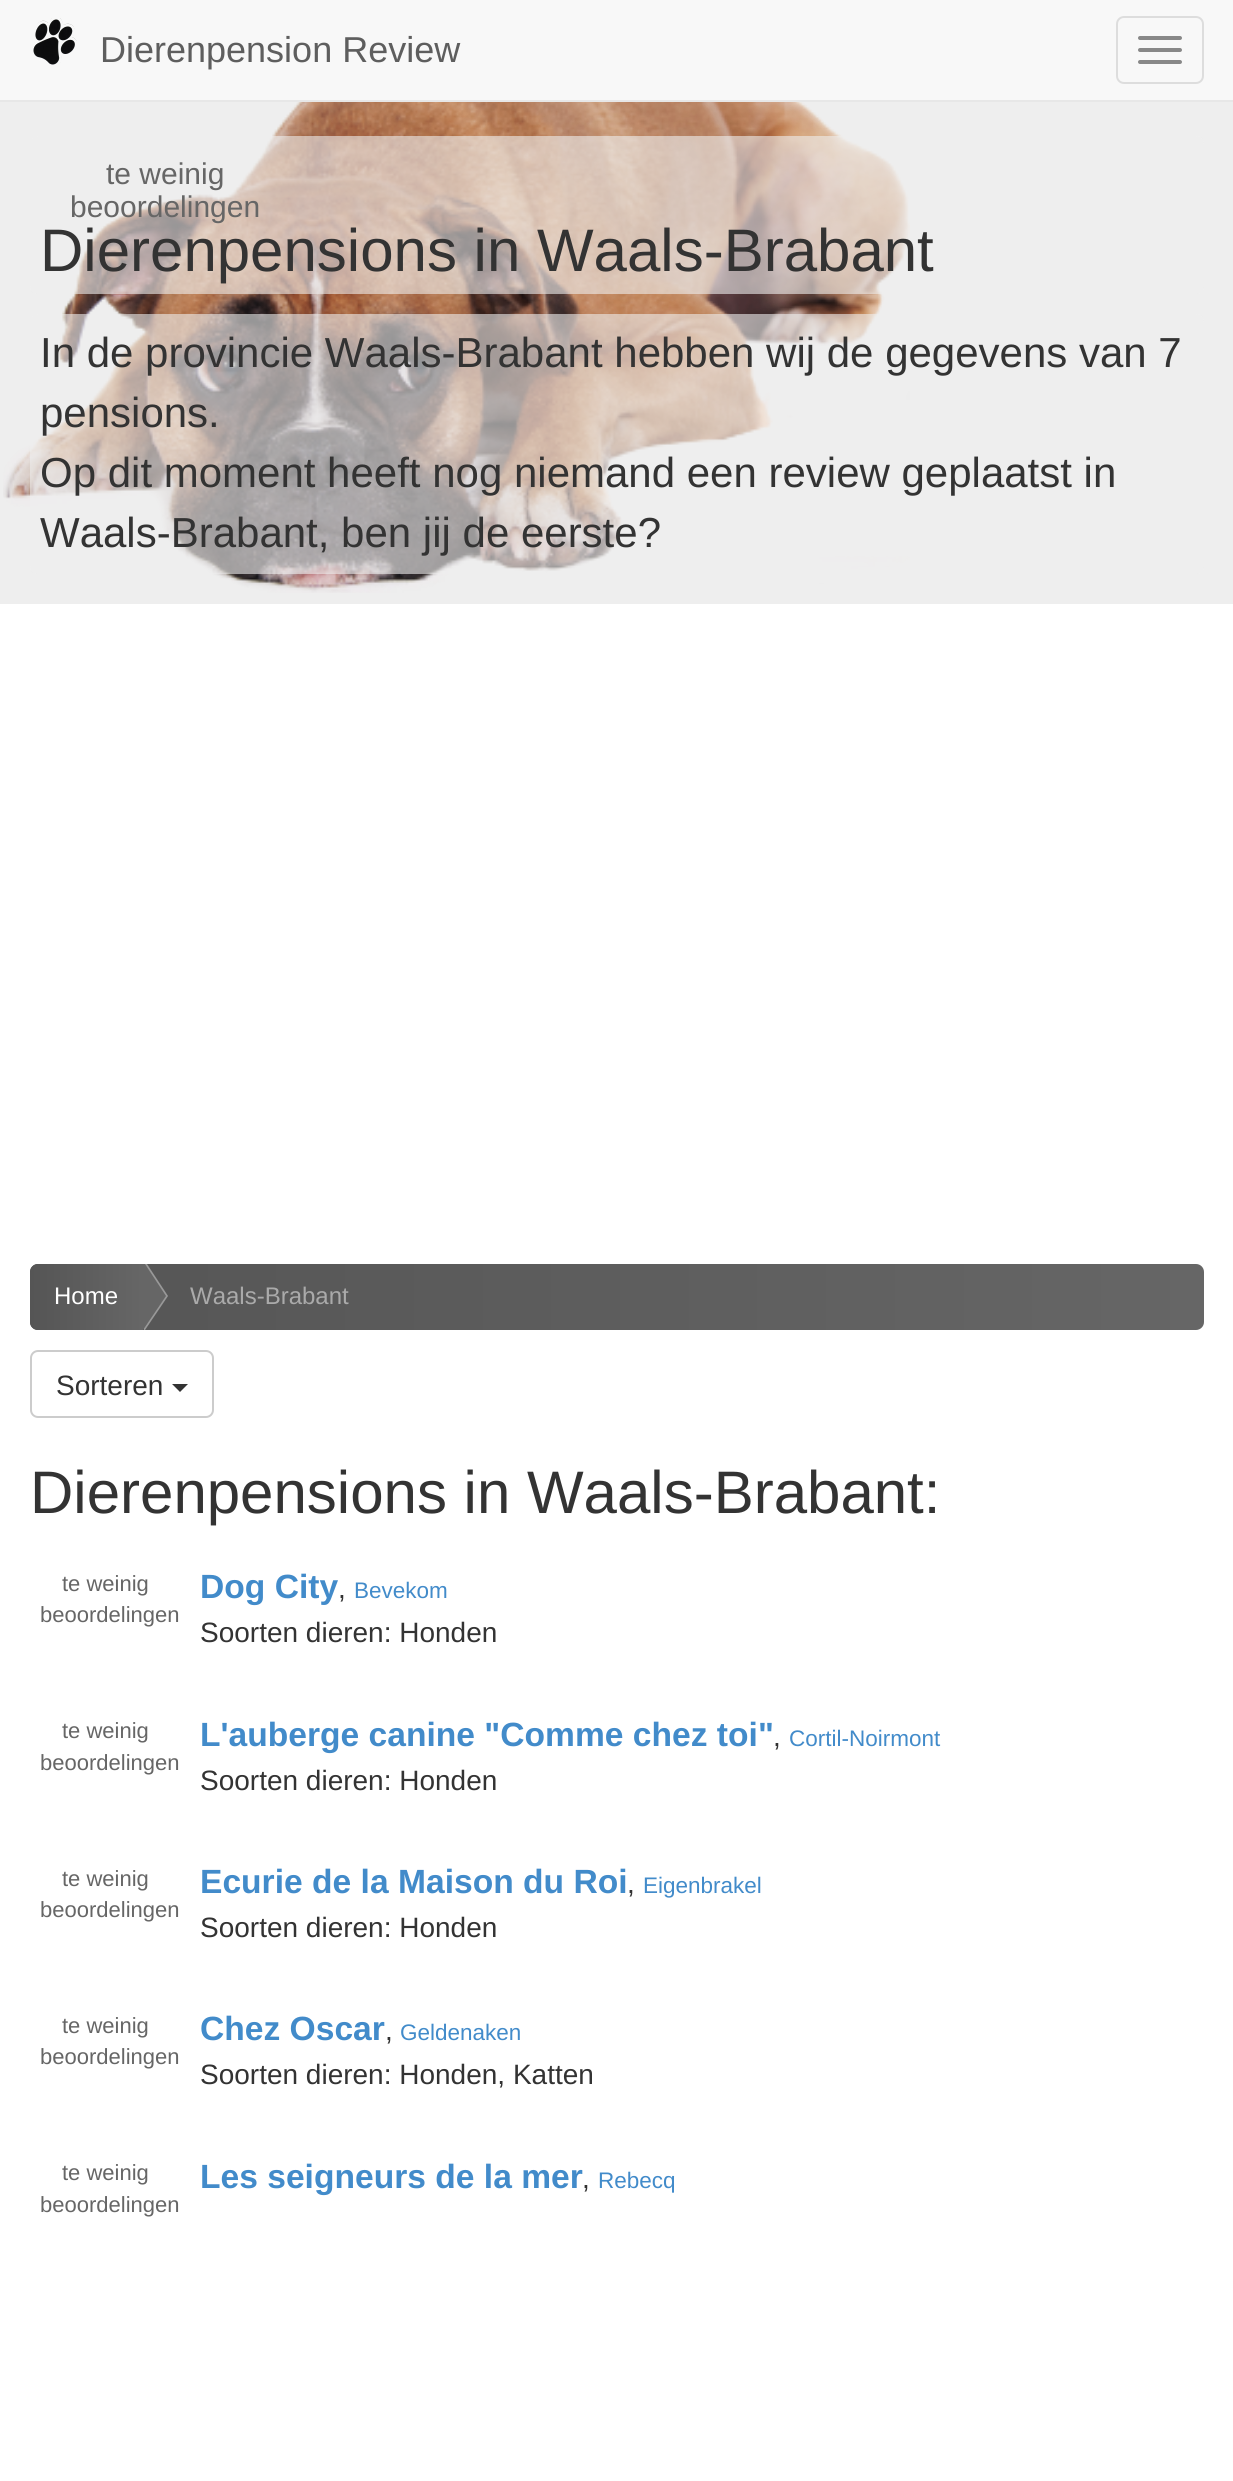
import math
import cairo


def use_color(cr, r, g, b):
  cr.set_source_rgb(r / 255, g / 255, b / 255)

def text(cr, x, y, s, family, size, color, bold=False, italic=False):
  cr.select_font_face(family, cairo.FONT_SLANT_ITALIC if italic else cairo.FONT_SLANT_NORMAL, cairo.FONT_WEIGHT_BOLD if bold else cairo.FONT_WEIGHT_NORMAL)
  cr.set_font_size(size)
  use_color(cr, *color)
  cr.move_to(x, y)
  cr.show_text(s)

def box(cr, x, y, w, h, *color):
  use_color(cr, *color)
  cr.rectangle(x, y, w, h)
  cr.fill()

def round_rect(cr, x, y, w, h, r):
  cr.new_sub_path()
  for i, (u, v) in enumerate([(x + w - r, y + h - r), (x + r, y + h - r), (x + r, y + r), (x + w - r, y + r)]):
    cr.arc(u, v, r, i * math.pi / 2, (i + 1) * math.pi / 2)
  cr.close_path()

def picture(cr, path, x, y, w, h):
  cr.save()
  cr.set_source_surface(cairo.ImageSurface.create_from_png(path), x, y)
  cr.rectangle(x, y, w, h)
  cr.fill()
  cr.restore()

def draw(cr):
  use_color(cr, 255, 255, 255)
  cr.paint()
  box(cr, 0, 0, 1233, 100, 248, 248, 248)
  box(cr, 0, 100, 1233, 2, 231, 231, 231)
  picture(cr, "img_01.png", 33, 18, 44, 47)
  round_rect(cr, 1117, 17, 86, 66, 7)
  use_color(cr, 221, 221, 221)
  cr.stroke()
  use_color(cr, 136, 136, 136)
  round_rect(cr, 1138, 36, 44, 4, 2)
  cr.fill()
  round_rect(cr, 1138, 48, 44, 4, 2)
  cr.fill()
  round_rect(cr, 1138, 60, 44, 4, 2)
  cr.fill()
  box(cr, 0, 102, 1233, 502, 238, 238, 238)
  picture(cr, "img_02.png", 3, 102, 907, 491)
  cr.set_source_rgba(0.933, 0.933, 0.933, 0.6)
  round_rect(cr, 30, 136, 1174, 158, 8)
  cr.fill()
  round_rect(cr, 30, 314, 1174, 260, 8)
  cr.fill()
  gradient = cairo.LinearGradient(30, 1297, 1204, 1297)
  gradient.add_color_stop_rgba(0, 0.333, 0.333, 0.333, 1)
  gradient.add_color_stop_rgba(1, 0.4, 0.4, 0.4, 1)
  cr.set_source(gradient)
  round_rect(cr, 30, 1264, 1174, 66, 8)
  cr.fill()
  gradient = cairo.LinearGradient(30, 1297, 142, 1297)
  gradient.add_color_stop_rgba(0, 0.333, 0.333, 0.333, 1)
  gradient.add_color_stop_rgba(1, 0.4, 0.4, 0.4, 1)
  cr.set_source(gradient)
  cr.new_path()
  cr.move_to(38, 1264)
  cr.line_to(142, 1264)
  cr.line_to(142, 1330)
  cr.line_to(38, 1330)
  cr.curve_to(33.5, 1330, 30, 1326.5, 30, 1322)
  cr.line_to(30, 1272)
  cr.curve_to(30, 1267.5, 33.5, 1264, 38, 1264)
  cr.close_path()
  cr.fill()
  use_color(cr, 153, 153, 153)
  cr.new_path()
  cr.move_to(147, 1264)
  cr.line_to(168, 1296)
  cr.line_to(145, 1330)
  cr.line_to(144, 1330)
  cr.line_to(144, 1264)
  cr.close_path()
  cr.fill()
  use_color(cr, 102, 102, 102)
  cr.new_path()
  cr.move_to(145, 1264)
  cr.line_to(166, 1296)
  cr.line_to(143, 1330)
  cr.line_to(142, 1330)
  cr.line_to(142, 1264)
  cr.close_path()
  cr.fill()
  round_rect(cr, 31, 1351, 182, 66, 7)
  use_color(cr, 204, 204, 204)
  cr.stroke()
  use_color(cr, 51, 51, 51)
  cr.new_path()
  cr.move_to(172, 1384)
  cr.line_to(188, 1384)
  cr.line_to(180, 1392)
  cr.close_path()
  cr.fill()
  text(cr, 100, 62, "Dierenpension Review", "Liberation Sans", 36, (94, 94, 94))
  text(cr, 106, 184, "te weinig", "Liberation Sans", 30, (102, 102, 102))
  text(cr, 70, 217, "beoordelingen", "Liberation Sans", 30, (102, 102, 102))
  text(cr, 40, 271, "Dierenpensions in Waals-Brabant", "Liberation Sans", 60, (51, 51, 51))
  text(cr, 40, 367, "In de provincie Waals-Brabant hebben wij de gegevens van 7", "Liberation Sans", 42, (51, 51, 51))
  text(cr, 40, 427, "pensions.", "Liberation Sans", 42, (51, 51, 51))
  text(cr, 40, 487, "Op dit moment heeft nog niemand een review geplaatst in", "Liberation Sans", 42, (51, 51, 51))
  text(cr, 40, 547, "Waals-Brabant, ben jij de eerste?", "Liberation Sans", 42, (51, 51, 51))
  text(cr, 54, 1304, "Home", "Liberation Sans", 24, (255, 255, 255))
  text(cr, 190, 1304, "Waals-Brabant", "Liberation Sans", 24, (170, 170, 170))
  text(cr, 56, 1395, "Sorteren", "Liberation Sans", 28, (51, 51, 51))
  text(cr, 30, 1513, "Dierenpensions in Waals-Brabant:", "Liberation Sans", 60, (51, 51, 51))
  text(cr, 62, 1591, "te weinig", "Liberation Sans", 22, (102, 102, 102))
  text(cr, 40, 1622, "beoordelingen", "Liberation Sans", 22, (102, 102, 102))
  text(cr, 200, 1598, "Dog City", "Liberation Sans", 33.6, (66, 139, 202), bold=True)
  text(cr, 338, 1598, ",", "Liberation Sans", 28, (51, 51, 51))
  text(cr, 354, 1598, "Bevekom", "Liberation Sans", 22.5, (66, 139, 202))
  text(cr, 200, 1642, "Soorten dieren: Honden", "Liberation Sans", 28, (51, 51, 51))
  text(cr, 62, 1738, "te weinig", "Liberation Sans", 22, (102, 102, 102))
  text(cr, 40, 1770, "beoordelingen", "Liberation Sans", 22, (102, 102, 102))
  text(cr, 200, 1746, "L'auberge canine \"Comme chez toi\"", "Liberation Sans", 33.6, (66, 139, 202), bold=True)
  text(cr, 773, 1746, ",", "Liberation Sans", 28, (51, 51, 51))
  text(cr, 789, 1746, "Cortil-Noirmont", "Liberation Sans", 22.5, (66, 139, 202))
  text(cr, 200, 1790, "Soorten dieren: Honden", "Liberation Sans", 28, (51, 51, 51))
  text(cr, 62, 1886, "te weinig", "Liberation Sans", 22, (102, 102, 102))
  text(cr, 40, 1917, "beoordelingen", "Liberation Sans", 22, (102, 102, 102))
  text(cr, 200, 1893, "Ecurie de la Maison du Roi", "Liberation Sans", 33.6, (66, 139, 202), bold=True)
  text(cr, 627, 1893, ",", "Liberation Sans", 28, (51, 51, 51))
  text(cr, 643, 1893, "Eigenbrakel", "Liberation Sans", 22.5, (66, 139, 202))
  text(cr, 200, 1937, "Soorten dieren: Honden", "Liberation Sans", 28, (51, 51, 51))
  text(cr, 62, 2033, "te weinig", "Liberation Sans", 22, (102, 102, 102))
  text(cr, 40, 2064, "beoordelingen", "Liberation Sans", 22, (102, 102, 102))
  text(cr, 200, 2040, "Chez Oscar", "Liberation Sans", 33.6, (66, 139, 202), bold=True)
  text(cr, 385, 2040, ",", "Liberation Sans", 28, (51, 51, 51))
  text(cr, 400, 2040, "Geldenaken", "Liberation Sans", 22.5, (66, 139, 202))
  text(cr, 200, 2084, "Soorten dieren: Honden, Katten", "Liberation Sans", 28, (51, 51, 51))
  text(cr, 62, 2180, "te weinig", "Liberation Sans", 22, (102, 102, 102))
  text(cr, 40, 2212, "beoordelingen", "Liberation Sans", 22, (102, 102, 102))
  text(cr, 200, 2188, "Les seigneurs de la mer", "Liberation Sans", 33.6, (66, 139, 202), bold=True)
  text(cr, 582, 2188, ",", "Liberation Sans", 28, (51, 51, 51))
  text(cr, 598, 2188, "Rebecq", "Liberation Sans", 22.5, (66, 139, 202))


surface = cairo.ImageSurface(cairo.FORMAT_RGB24, 1233, 2481)
cr = cairo.Context(surface)
options = cairo.FontOptions()
options.set_hint_metrics(cairo.HINT_METRICS_OFF)
options.set_hint_style(cairo.HINT_STYLE_NONE)
cr.set_font_options(options)
cr.set_miter_limit(4)
draw(cr)
surface.write_to_png("out.png")
